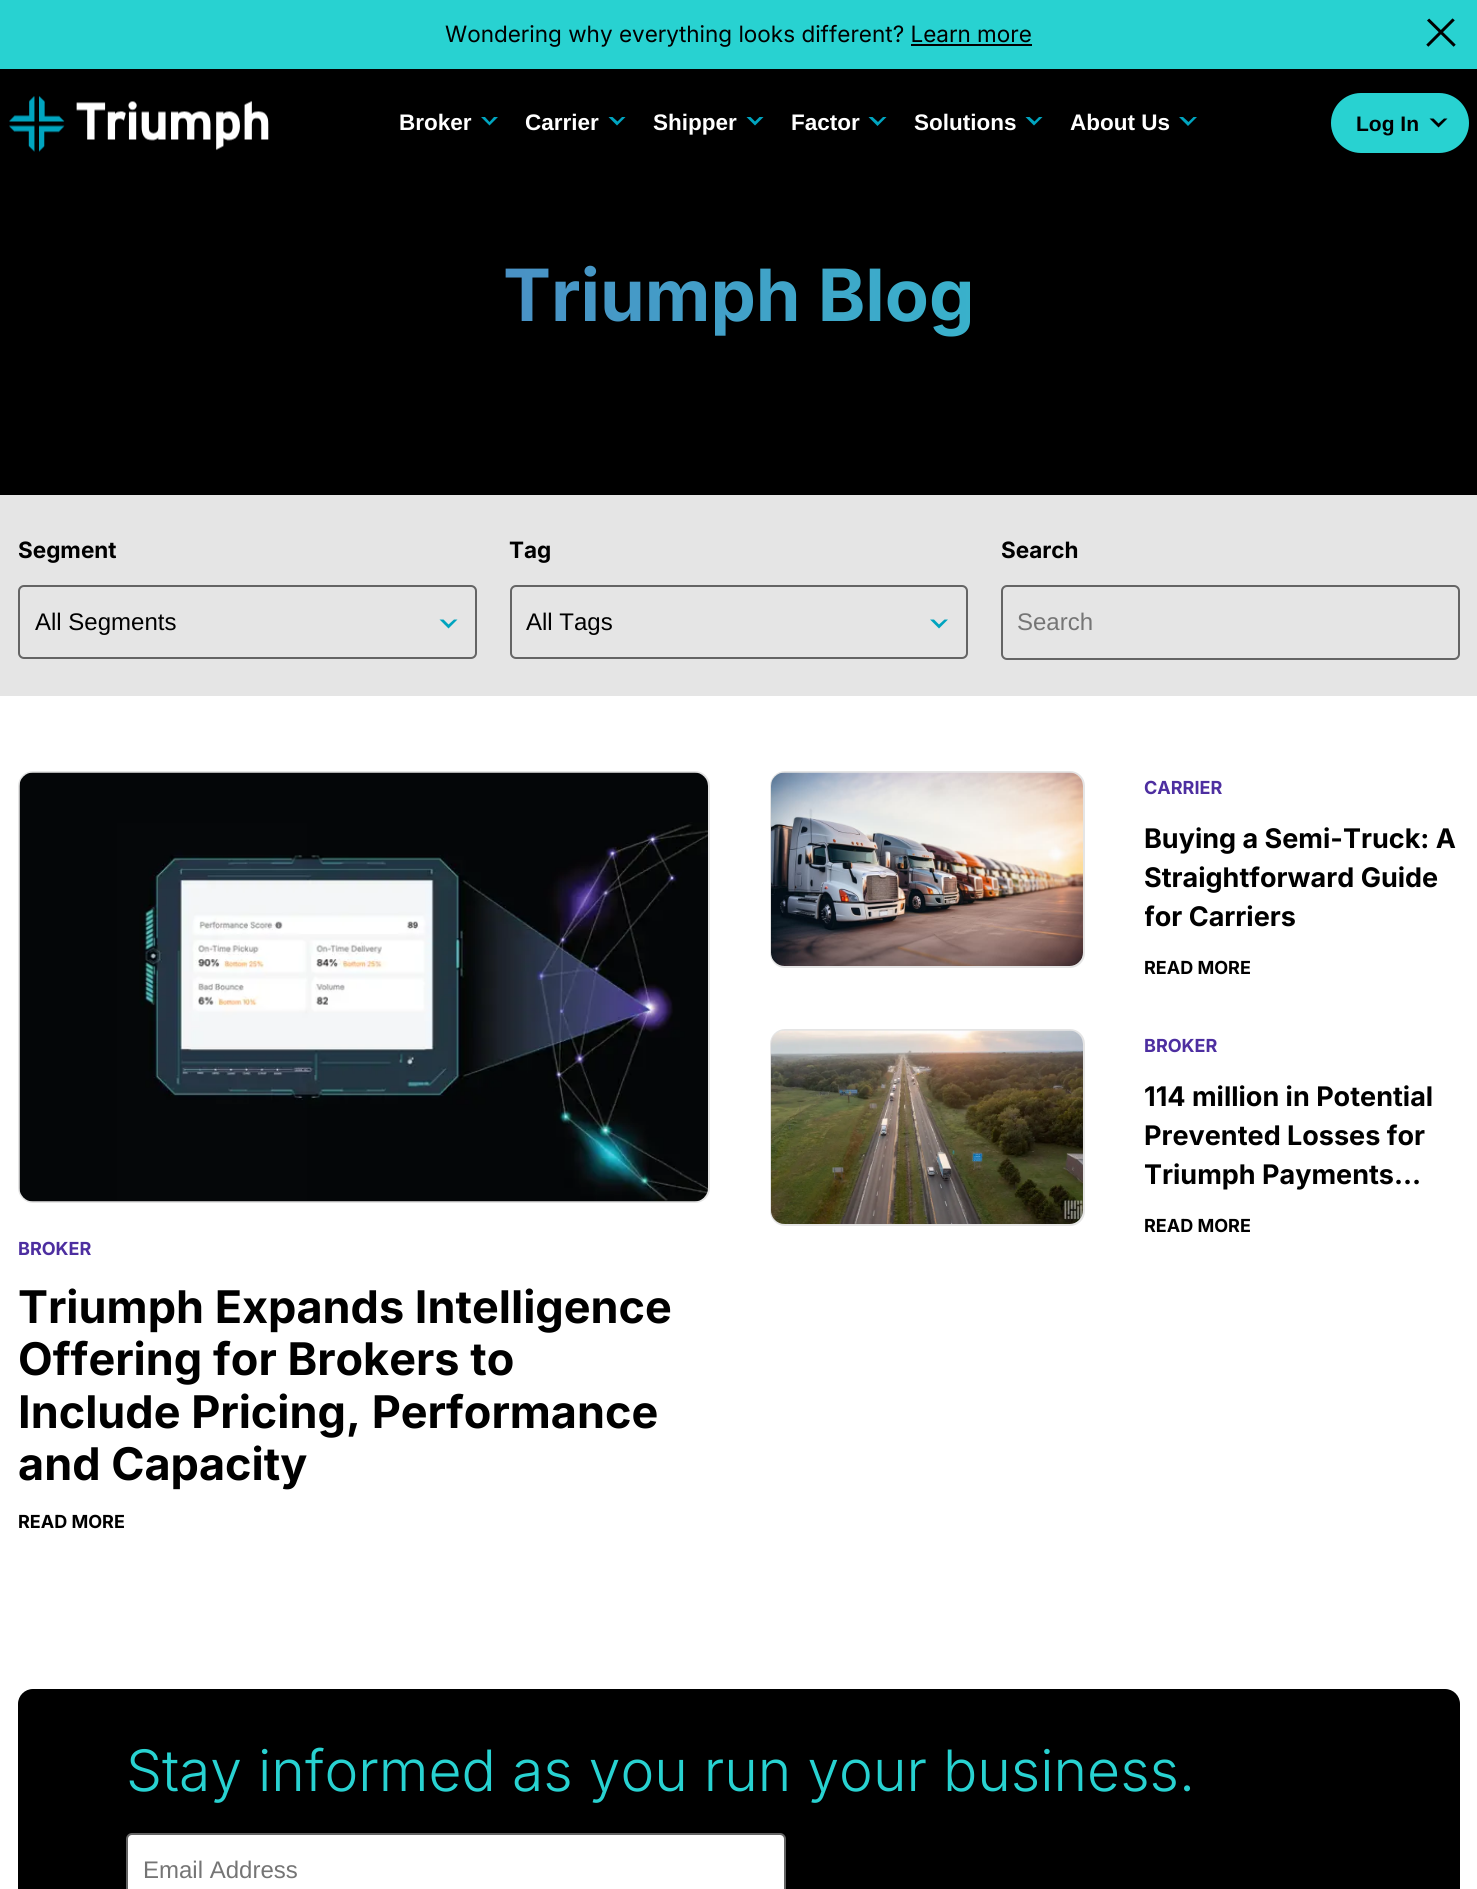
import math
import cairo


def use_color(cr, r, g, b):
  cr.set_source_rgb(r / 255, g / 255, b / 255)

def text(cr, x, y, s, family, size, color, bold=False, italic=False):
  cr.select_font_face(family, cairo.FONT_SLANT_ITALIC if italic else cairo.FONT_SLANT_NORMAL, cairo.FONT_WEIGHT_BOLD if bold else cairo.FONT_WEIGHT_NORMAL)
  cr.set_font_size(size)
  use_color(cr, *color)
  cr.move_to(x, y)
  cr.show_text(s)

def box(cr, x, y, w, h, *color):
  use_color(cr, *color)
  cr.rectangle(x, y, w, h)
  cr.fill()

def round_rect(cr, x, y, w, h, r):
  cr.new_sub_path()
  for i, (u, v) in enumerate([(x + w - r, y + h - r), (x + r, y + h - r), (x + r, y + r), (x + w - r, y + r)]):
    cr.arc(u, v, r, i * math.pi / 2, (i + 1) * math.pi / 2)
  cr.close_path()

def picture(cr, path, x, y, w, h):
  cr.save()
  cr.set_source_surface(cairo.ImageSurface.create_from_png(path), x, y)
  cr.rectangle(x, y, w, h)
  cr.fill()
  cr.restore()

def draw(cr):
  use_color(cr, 0, 0, 0)
  cr.paint()
  box(cr, 0, 0, 1477, 69, 40, 210, 209)
  box(cr, 911, 44, 121, 2, 0, 0, 0)
  cr.save()
  round_rect(cr, 1422, 15, 38, 36, 18)
  cr.clip()
  cr.new_path()
  cr.move_to(1424, 49)
  cr.line_to(1456, 17)
  cr.move_to(1426, 17.5)
  cr.line_to(1458, 49)
  cr.set_line_width(3)
  cr.stroke()
  cr.restore()
  picture(cr, "img_01.png", 9, 96, 260, 56)
  use_color(cr, 0, 164, 191)
  cr.new_path()
  cr.move_to(489.5, 122)
  cr.line_to(494, 117)
  cr.line_to(498, 117)
  cr.line_to(489.5, 125.5)
  cr.line_to(481, 117)
  cr.line_to(485, 117)
  cr.close_path()
  cr.fill()
  cr.new_path()
  cr.move_to(617.5, 121.5)
  cr.line_to(622, 117)
  cr.line_to(625.5, 117)
  cr.line_to(617, 125.5)
  cr.line_to(608.5, 117)
  cr.line_to(612.5, 117)
  cr.close_path()
  cr.fill()
  cr.new_path()
  cr.move_to(755, 121.5)
  cr.line_to(759.5, 117)
  cr.line_to(763.5, 117)
  cr.line_to(755, 125.5)
  cr.line_to(746.5, 117)
  cr.line_to(750.5, 117)
  cr.close_path()
  cr.fill()
  cr.new_path()
  cr.move_to(878, 122)
  cr.line_to(872.5, 117)
  cr.line_to(868.5, 117)
  cr.line_to(877.5, 126)
  cr.line_to(886.5, 117)
  cr.line_to(883, 117)
  cr.close_path()
  cr.fill()
  cr.new_path()
  cr.move_to(1034.5, 121.5)
  cr.line_to(1039, 117)
  cr.line_to(1042.5, 117)
  cr.line_to(1034, 125.5)
  cr.line_to(1025.5, 117)
  cr.line_to(1029.5, 117)
  cr.close_path()
  cr.fill()
  cr.new_path()
  cr.move_to(1188.5, 122)
  cr.line_to(1183, 117)
  cr.line_to(1179, 117)
  cr.line_to(1188, 126)
  cr.line_to(1197, 117)
  cr.line_to(1193.5, 117)
  cr.close_path()
  cr.fill()
  use_color(cr, 40, 210, 209)
  round_rect(cr, 1332, 94, 136, 58, 29)
  cr.fill_preserve()
  cr.stroke()
  use_color(cr, 0, 0, 0)
  cr.new_path()
  cr.move_to(1438.5, 123.5)
  cr.line_to(1433.5, 118.5)
  cr.line_to(1429.5, 118.5)
  cr.line_to(1438.5, 127.5)
  cr.line_to(1447.5, 118.5)
  cr.line_to(1444, 118.5)
  cr.close_path()
  cr.fill()
  box(cr, 0, 495, 1477, 201, 229, 229, 229)
  use_color(cr, 0, 164, 191)
  cr.new_path()
  cr.move_to(457.5, 619.5)
  cr.line_to(454, 619.5)
  cr.line_to(448.5, 624.5)
  cr.line_to(443.5, 619.5)
  cr.line_to(439.5, 619.5)
  cr.line_to(448.5, 628.5)
  cr.close_path()
  cr.fill()
  round_rect(cr, 19, 586, 457, 72, 5)
  use_color(cr, 100, 100, 100)
  cr.stroke()
  use_color(cr, 0, 164, 191)
  cr.new_path()
  cr.move_to(948, 619.5)
  cr.line_to(944.5, 619.5)
  cr.line_to(939, 624.5)
  cr.line_to(934, 619.5)
  cr.line_to(930, 619.5)
  cr.line_to(939, 628.5)
  cr.close_path()
  cr.fill()
  round_rect(cr, 511, 586, 456, 72, 5)
  use_color(cr, 100, 100, 100)
  cr.stroke()
  round_rect(cr, 1002, 586, 457, 73, 5)
  cr.stroke()
  box(cr, 0, 696, 1477, 1193, 255, 255, 255)
  round_rect(cr, 771, 772, 313, 195, 14)
  use_color(cr, 229, 229, 229)
  cr.stroke()
  picture(cr, "img_02.png", 771, 772, 312, 194)
  round_rect(cr, 771, 1030, 313, 195, 14)
  cr.stroke()
  picture(cr, "img_03.png", 771, 1030, 312, 194)
  round_rect(cr, 19, 772, 690, 430, 14)
  cr.stroke()
  picture(cr, "img_04.png", 19, 772, 689, 430)
  use_color(cr, 0, 0, 0)
  round_rect(cr, 18, 1689, 1442, 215, 15)
  cr.fill()
  use_color(cr, 255, 255, 255)
  round_rect(cr, 127, 1834, 658, 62, 5)
  cr.fill_preserve()
  use_color(cr, 100, 100, 100)
  cr.stroke()
  text(cr, 445, 42, "Wondering why everything looks different? Learn more", "Inter", 22.5, (0, 0, 0))
  text(cr, 399, 130, "Broker", "Liberation Sans", 22.5, (255, 255, 255), bold=True)
  text(cr, 525, 130, "Carrier", "Liberation Sans", 22.5, (255, 255, 255), bold=True)
  text(cr, 653, 130, "Shipper", "Liberation Sans", 22.5, (255, 255, 255), bold=True)
  text(cr, 791, 130, "Factor", "Liberation Sans", 22.5, (255, 255, 255), bold=True)
  text(cr, 914, 130, "Solutions", "Liberation Sans", 22.5, (255, 255, 255), bold=True)
  text(cr, 1070, 130, "About Us", "Liberation Sans", 22.5, (255, 255, 255), bold=True)
  text(cr, 1356, 131, "Log In", "Liberation Sans", 21, (0, 0, 0), bold=True)
  cr.select_font_face("Inter", cairo.FONT_SLANT_NORMAL, cairo.FONT_WEIGHT_BOLD)
  cr.set_font_size(72)
  gradient = cairo.LinearGradient(18, 299, 1460, 298)
  gradient.add_color_stop_rgba(0.01, 0.353, 0.443, 0.749, 1)
  gradient.add_color_stop_rgba(1, 0.157, 0.824, 0.82, 1)
  cr.set_source(gradient)
  cr.move_to(503, 321)
  cr.show_text("Triumph Blog")
  text(cr, 18, 558, "Segment", "Inter", 22.5, (0, 0, 0), bold=True)
  text(cr, 35, 630, "All Segments", "Liberation Sans", 24, (0, 0, 0))
  text(cr, 509, 558, "Tag", "Inter", 22.5, (0, 0, 0), bold=True)
  text(cr, 526, 630, "All Tags", "Liberation Sans", 24, (0, 0, 0))
  text(cr, 1001, 558, "Search", "Inter", 22.5, (0, 0, 0), bold=True)
  text(cr, 1017, 630, "Search", "Liberation Sans", 24, (117, 117, 117))
  text(cr, 1144, 794, "CARRIER", "Inter", 18, (77, 46, 160), bold=True)
  text(cr, 1144, 848, "Buying a Semi-Truck: A", "Inter", 27, (0, 0, 0), bold=True)
  text(cr, 1144, 887, "Straightforward Guide", "Inter", 27, (0, 0, 0), bold=True)
  cr.save()
  cr.rectangle(1145, 819, 315, 117)
  cr.clip()
  text(cr, 1144, 926, "for Carriers", "Inter", 27, (0, 0, 0), bold=True)
  cr.restore()
  text(cr, 1144, 974, "READ MORE", "Inter", 18, (0, 0, 0), bold=True)
  text(cr, 1144, 1052, "BROKER", "Inter", 18, (77, 46, 160), bold=True)
  text(cr, 1144, 1106, "114 million in Potential", "Inter", 27, (0, 0, 0), bold=True)
  text(cr, 1144, 1145, "Prevented Losses for", "Inter", 27, (0, 0, 0), bold=True)
  text(cr, 1144, 1184, "Triumph Payments…", "Inter", 27, (0, 0, 0), bold=True)
  text(cr, 1144, 1232, "READ MORE", "Inter", 18, (0, 0, 0), bold=True)
  text(cr, 18, 1255, "BROKER", "Inter", 18, (77, 46, 160), bold=True)
  text(cr, 18, 1323, "Triumph Expands Intelligence", "Inter", 45, (0, 0, 0), bold=True)
  text(cr, 18, 1375, "Offering for Brokers to", "Inter", 45, (0, 0, 0), bold=True)
  text(cr, 18, 1428, "Include Pricing, Performance", "Inter", 45, (0, 0, 0), bold=True)
  text(cr, 18, 1480, "and Capacity", "Inter", 45, (0, 0, 0), bold=True)
  text(cr, 18, 1528, "READ MORE", "Inter", 18, (0, 0, 0), bold=True)
  text(cr, 126, 1791, "Stay informed as you run your business.", "Inter Light", 57, (40, 210, 209))
  text(cr, 143, 1878, "Email Address", "Liberation Sans", 24, (117, 117, 117))


surface = cairo.ImageSurface(cairo.FORMAT_RGB24, 1477, 1889)
cr = cairo.Context(surface)
options = cairo.FontOptions()
options.set_hint_metrics(cairo.HINT_METRICS_OFF)
options.set_hint_style(cairo.HINT_STYLE_NONE)
cr.set_font_options(options)
cr.set_miter_limit(4)
draw(cr)
surface.write_to_png("out.png")
